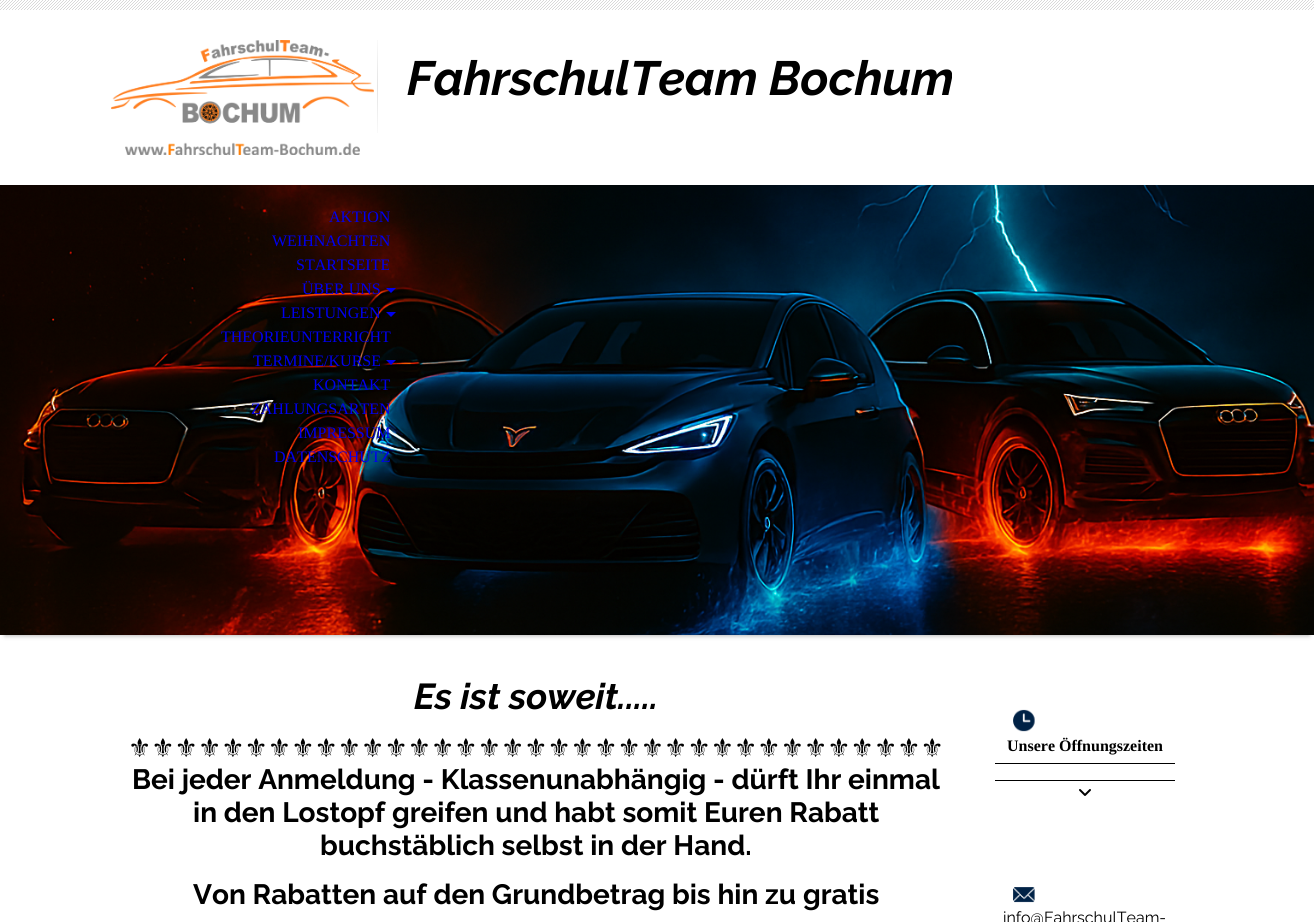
import math
import cairo


def use_color(cr, r, g, b):
  cr.set_source_rgb(r / 255, g / 255, b / 255)

def text(cr, x, y, s, family, size, color, bold=False, italic=False):
  cr.select_font_face(family, cairo.FONT_SLANT_ITALIC if italic else cairo.FONT_SLANT_NORMAL, cairo.FONT_WEIGHT_BOLD if bold else cairo.FONT_WEIGHT_NORMAL)
  cr.set_font_size(size)
  use_color(cr, *color)
  cr.move_to(x, y)
  cr.show_text(s)

def box(cr, x, y, w, h, *color):
  use_color(cr, *color)
  cr.rectangle(x, y, w, h)
  cr.fill()

def round_rect(cr, x, y, w, h, r):
  cr.new_sub_path()
  for i, (u, v) in enumerate([(x + w - r, y + h - r), (x + r, y + h - r), (x + r, y + r), (x + w - r, y + r)]):
    cr.arc(u, v, r, i * math.pi / 2, (i + 1) * math.pi / 2)
  cr.close_path()

def shadow(cr, x, y, w, h, r, blur, alpha):
  cr.push_group_with_content(cairo.CONTENT_ALPHA)
  cr.set_operator(cairo.OPERATOR_SOURCE)
  for i in range(15, -16, -2):
    e = blur * i / 6
    if min(w, h) + 2 * e > 0:
      cr.set_source_rgba(0, 0, 0, alpha * math.erfc((i - 1) / 8.5) / 2)
      round_rect(cr, x - e, y - e, w + 2 * e, h + 2 * e, max(0, min(r + e + blur * .6, min(w, h) / 2 + e)))
      cr.fill()
  cr.mask(cr.pop_group())

def picture(cr, path, x, y, w, h):
  cr.save()
  cr.set_source_surface(cairo.ImageSurface.create_from_png(path), x, y)
  cr.rectangle(x, y, w, h)
  cr.fill()
  cr.restore()

def draw(cr):
  use_color(cr, 255, 255, 255)
  cr.paint()
  picture(cr, "img_01.png", 0, 0, 1314, 10)
  picture(cr, "img_02.png", 111, 40, 263, 115)
  picture(cr, "img_03.png", 377, 40, 1, 93)
  use_color(cr, 0, 0, 0)
  shadow(cr, 5, 195, 1304, 440, 0, 2.5, 0.4)
  picture(cr, "img_04.png", 0, 185, 1314, 450)
  use_color(cr, 0, 0, 238)
  cr.new_path()
  cr.move_to(386, 288)
  cr.line_to(396, 288)
  cr.line_to(391, 293)
  cr.close_path()
  cr.move_to(386, 312)
  cr.line_to(396, 312)
  cr.line_to(391, 317)
  cr.close_path()
  cr.fill()
  cr.new_path()
  cr.move_to(386, 360)
  cr.line_to(396, 360)
  cr.line_to(391, 365)
  cr.close_path()
  cr.fill()
  picture(cr, "img_05.png", 1013, 709, 22, 23)
  box(cr, 995, 763, 180, 1, 0, 0, 0)
  box(cr, 995, 780, 180, 1, 0, 0, 0)
  picture(cr, "img_06.png", 1079, 789, 12, 7)
  picture(cr, "img_07.png", 1013, 887, 22, 16)
  text(cr, 407, 95, "FahrschulTeam Bochum", "Raleway", 48, (0, 0, 0), bold=True, italic=True)
  text(cr, 329, 222, "AKTION", "Liberation Serif", 16, (0, 0, 238))
  text(cr, 272, 246, "WEIHNACHTEN", "Liberation Serif", 16, (0, 0, 238))
  text(cr, 296, 270, "STARTSEITE", "Liberation Serif", 16, (0, 0, 238))
  text(cr, 302, 294, "ÜBER UNS", "Liberation Serif", 16, (0, 0, 238))
  text(cr, 281, 318, "LEISTUNGEN", "Liberation Serif", 16, (0, 0, 238))
  text(cr, 221, 342, "THEORIEUNTERRICHT", "Liberation Serif", 16, (0, 0, 238))
  text(cr, 253, 366, "TERMINE/KURSE", "Liberation Serif", 16, (0, 0, 238))
  text(cr, 313, 390, "KONTAKT", "Liberation Serif", 16, (0, 0, 238))
  text(cr, 251, 414, "ZAHLUNGSARTEN", "Liberation Serif", 16, (0, 0, 238))
  text(cr, 298, 438, "IMPRESSUM", "Liberation Serif", 16, (0, 0, 238))
  text(cr, 274, 462, "DATENSCHUTZ", "Liberation Serif", 16, (0, 0, 238))
  text(cr, 414, 709, "Es ist soweit.....", "Raleway", 36, (0, 0, 0), bold=True, italic=True)
  text(cr, 128, 757, "⚜⚜⚜⚜⚜⚜⚜⚜⚜⚜⚜⚜⚜⚜⚜⚜⚜⚜⚜⚜⚜⚜⚜⚜⚜⚜⚜⚜⚜⚜⚜⚜⚜⚜⚜", "DejaVu Sans", 26, (0, 0, 0))
  text(cr, 132, 789, "Bei jeder Anmeldung - Klassenunabhängig - dürft Ihr einmal", "Raleway", 28, (0, 0, 0), bold=True)
  text(cr, 193, 822, "in den Lostopf greifen und habt somit Euren Rabatt", "Raleway", 28, (0, 0, 0), bold=True)
  text(cr, 320, 855, "buchstäblich selbst in der Hand.", "Raleway", 28, (0, 0, 0), bold=True)
  text(cr, 193, 904, "Von Rabatten auf den Grundbetrag bis hin zu gratis", "Raleway", 28, (0, 0, 0), bold=True)
  text(cr, 1007, 751, "Unsere Öffnungszeiten", "Liberation Serif", 16, (0, 0, 0), bold=True)
  text(cr, 1003, 923, "info@FahrschulTeam-", "Raleway", 16, (0, 0, 0))


surface = cairo.ImageSurface(cairo.FORMAT_RGB24, 1314, 922)
cr = cairo.Context(surface)
options = cairo.FontOptions()
options.set_hint_metrics(cairo.HINT_METRICS_OFF)
options.set_hint_style(cairo.HINT_STYLE_NONE)
cr.set_font_options(options)
cr.set_miter_limit(4)
draw(cr)
surface.write_to_png("out.png")
